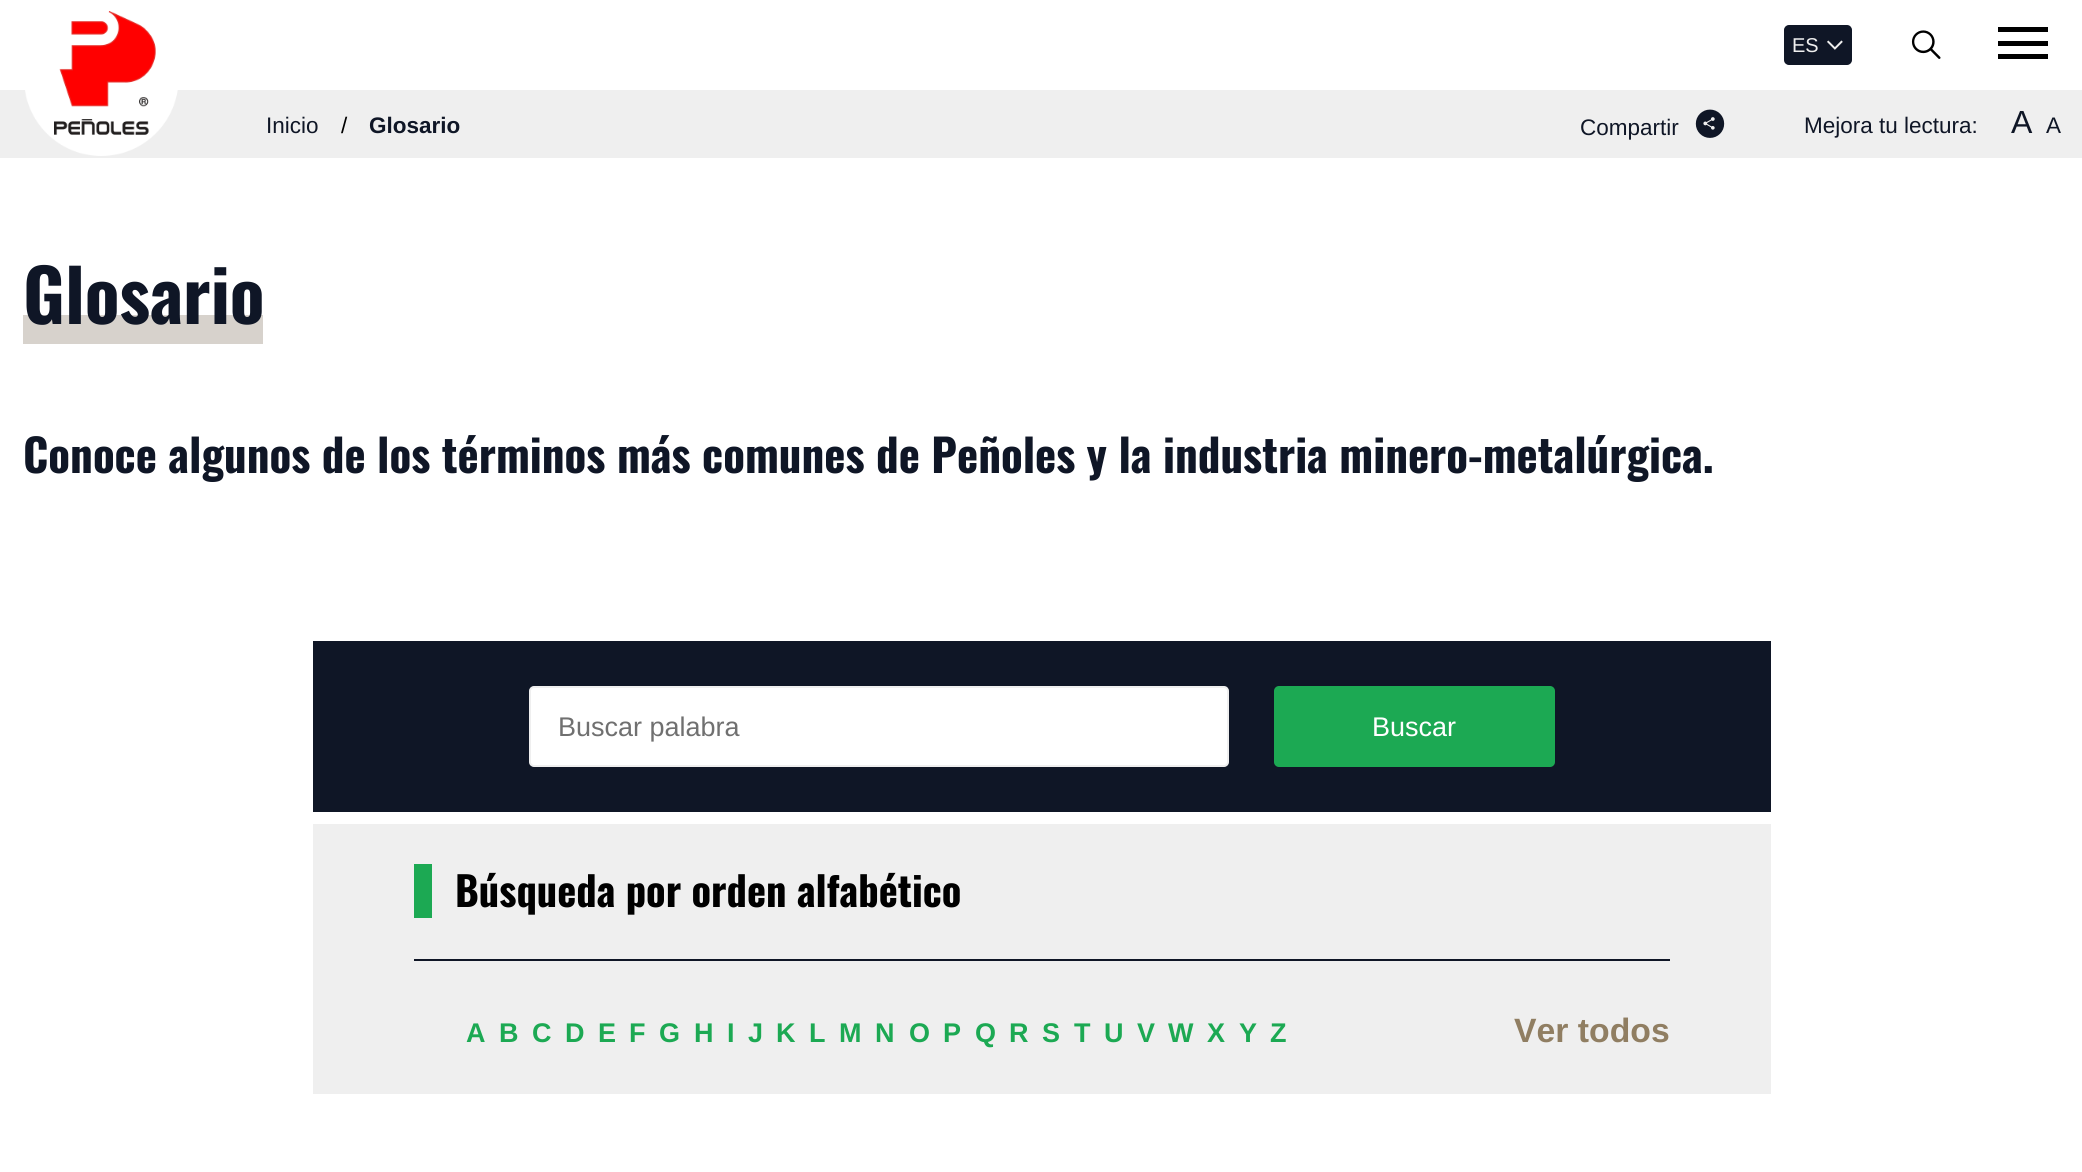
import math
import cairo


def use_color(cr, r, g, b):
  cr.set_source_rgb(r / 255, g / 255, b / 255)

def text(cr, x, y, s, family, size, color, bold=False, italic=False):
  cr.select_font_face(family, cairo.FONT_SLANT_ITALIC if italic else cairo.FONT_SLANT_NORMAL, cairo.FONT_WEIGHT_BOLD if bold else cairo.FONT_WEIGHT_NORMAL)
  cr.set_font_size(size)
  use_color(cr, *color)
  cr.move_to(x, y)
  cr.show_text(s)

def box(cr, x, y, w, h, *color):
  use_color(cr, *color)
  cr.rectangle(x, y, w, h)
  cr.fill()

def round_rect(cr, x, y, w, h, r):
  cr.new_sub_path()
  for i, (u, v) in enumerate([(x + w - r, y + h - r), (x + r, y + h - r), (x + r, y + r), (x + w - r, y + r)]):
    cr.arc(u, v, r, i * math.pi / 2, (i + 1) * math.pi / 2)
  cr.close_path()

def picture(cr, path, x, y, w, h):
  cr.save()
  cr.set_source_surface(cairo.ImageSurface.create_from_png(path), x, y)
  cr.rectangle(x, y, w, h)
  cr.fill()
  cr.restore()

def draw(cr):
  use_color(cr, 255, 255, 255)
  cr.paint()
  box(cr, 0, 90, 2082, 68, 239, 239, 239)
  picture(cr, "img_01.png", 25, 11, 153, 145)
  use_color(cr, 15, 22, 38)
  round_rect(cr, 1785, 26, 66, 38, 4)
  cr.fill_preserve()
  cr.stroke()
  picture(cr, "img_02.png", 1827, 40, 16, 10)
  picture(cr, "img_03.png", 1911, 30, 30, 29)
  box(cr, 1998, 41, 50, 5, 0, 0, 0)
  box(cr, 1998, 27, 50, 5, 0, 0, 0)
  box(cr, 1998, 54, 50, 5, 0, 0, 0)
  picture(cr, "img_04.png", 1695, 109, 30, 29)
  box(cr, 23, 315, 240, 29, 215, 210, 204)
  box(cr, 313, 641, 1458, 171, 15, 22, 38)
  use_color(cr, 255, 255, 255)
  round_rect(cr, 530, 687, 698, 79, 4)
  cr.fill_preserve()
  use_color(cr, 239, 239, 239)
  cr.stroke()
  use_color(cr, 28, 169, 83)
  round_rect(cr, 1274, 686, 281, 81, 5)
  cr.fill()
  box(cr, 313, 824, 1458, 270, 239, 239, 239)
  box(cr, 414, 864, 18, 54, 28, 169, 83)
  box(cr, 414, 959, 1256, 2, 15, 22, 38)
  text(cr, 1792, 52, "ES", "Liberation Sans", 20, (239, 239, 239))
  text(cr, 266, 133, "Inicio", "Liberation Sans", 22.5, (15, 22, 38))
  text(cr, 341, 133, "/", "Liberation Sans", 22.5, (0, 0, 0))
  text(cr, 369, 133, "Glosario", "Liberation Sans", 22.5, (15, 22, 38), bold=True)
  text(cr, 1580, 135, "Compartir", "Liberation Sans", 22.5, (15, 22, 38))
  text(cr, 1804, 133, "Mejora tu lectura:", "Liberation Sans", 22.5, (15, 22, 38))
  text(cr, 2011, 133, "A", "Liberation Sans", 32, (15, 22, 38))
  text(cr, 2046, 133, "A", "Liberation Sans", 22.5, (15, 22, 38))
  text(cr, 23, 324, "Glosario", "Oswald", 72, (15, 22, 38), bold=True)
  text(cr, 23, 473, "Conoce algunos de los términos más comunes de Peñoles y la industria minero-metalúrgica.", "Oswald", 45, (15, 22, 38), bold=True)
  text(cr, 558, 736, "Buscar palabra", "Liberation Sans", 27, (112, 112, 112))
  text(cr, 1372, 736, "Buscar", "Liberation Sans", 27, (255, 255, 255))
  text(cr, 455, 907, "Búsqueda por orden alfabético", "Oswald", 40.5, (0, 0, 0), bold=True)
  text(cr, 466, 1042, "A", "Liberation Sans", 27, (28, 169, 83), bold=True)
  text(cr, 499, 1042, "B", "Liberation Sans", 27, (28, 169, 83), bold=True)
  text(cr, 532, 1042, "C", "Liberation Sans", 27, (28, 169, 83), bold=True)
  text(cr, 565, 1042, "D", "Liberation Sans", 27, (28, 169, 83), bold=True)
  text(cr, 598, 1042, "E", "Liberation Sans", 27, (28, 169, 83), bold=True)
  text(cr, 629, 1042, "F", "Liberation Sans", 27, (28, 169, 83), bold=True)
  text(cr, 659, 1042, "G", "Liberation Sans", 27, (28, 169, 83), bold=True)
  text(cr, 694, 1042, "H", "Liberation Sans", 27, (28, 169, 83), bold=True)
  text(cr, 727, 1042, "I", "Liberation Sans", 27, (28, 169, 83), bold=True)
  text(cr, 748, 1042, "J", "Liberation Sans", 27, (28, 169, 83), bold=True)
  text(cr, 776, 1042, "K", "Liberation Sans", 27, (28, 169, 83), bold=True)
  text(cr, 809, 1042, "L", "Liberation Sans", 27, (28, 169, 83), bold=True)
  text(cr, 839, 1042, "M", "Liberation Sans", 27, (28, 169, 83), bold=True)
  text(cr, 875, 1042, "N", "Liberation Sans", 27, (28, 169, 83), bold=True)
  text(cr, 909, 1042, "O", "Liberation Sans", 27, (28, 169, 83), bold=True)
  text(cr, 943, 1042, "P", "Liberation Sans", 27, (28, 169, 83), bold=True)
  text(cr, 975, 1042, "Q", "Liberation Sans", 27, (28, 169, 83), bold=True)
  text(cr, 1009, 1042, "R", "Liberation Sans", 27, (28, 169, 83), bold=True)
  text(cr, 1042, 1042, "S", "Liberation Sans", 27, (28, 169, 83), bold=True)
  text(cr, 1074, 1042, "T", "Liberation Sans", 27, (28, 169, 83), bold=True)
  text(cr, 1104, 1042, "U", "Liberation Sans", 27, (28, 169, 83), bold=True)
  text(cr, 1137, 1042, "V", "Liberation Sans", 27, (28, 169, 83), bold=True)
  text(cr, 1168, 1042, "W", "Liberation Sans", 27, (28, 169, 83), bold=True)
  text(cr, 1207, 1042, "X", "Liberation Sans", 27, (28, 169, 83), bold=True)
  text(cr, 1239, 1042, "Y", "Liberation Sans", 27, (28, 169, 83), bold=True)
  text(cr, 1270, 1042, "Z", "Liberation Sans", 27, (28, 169, 83), bold=True)
  text(cr, 1514, 1042, "Ver todos", "Liberation Sans", 33.75, (144, 126, 98), bold=True)


surface = cairo.ImageSurface(cairo.FORMAT_RGB24, 2082, 1172)
cr = cairo.Context(surface)
options = cairo.FontOptions()
options.set_hint_metrics(cairo.HINT_METRICS_OFF)
options.set_hint_style(cairo.HINT_STYLE_NONE)
cr.set_font_options(options)
cr.set_miter_limit(4)
draw(cr)
surface.write_to_png("out.png")
